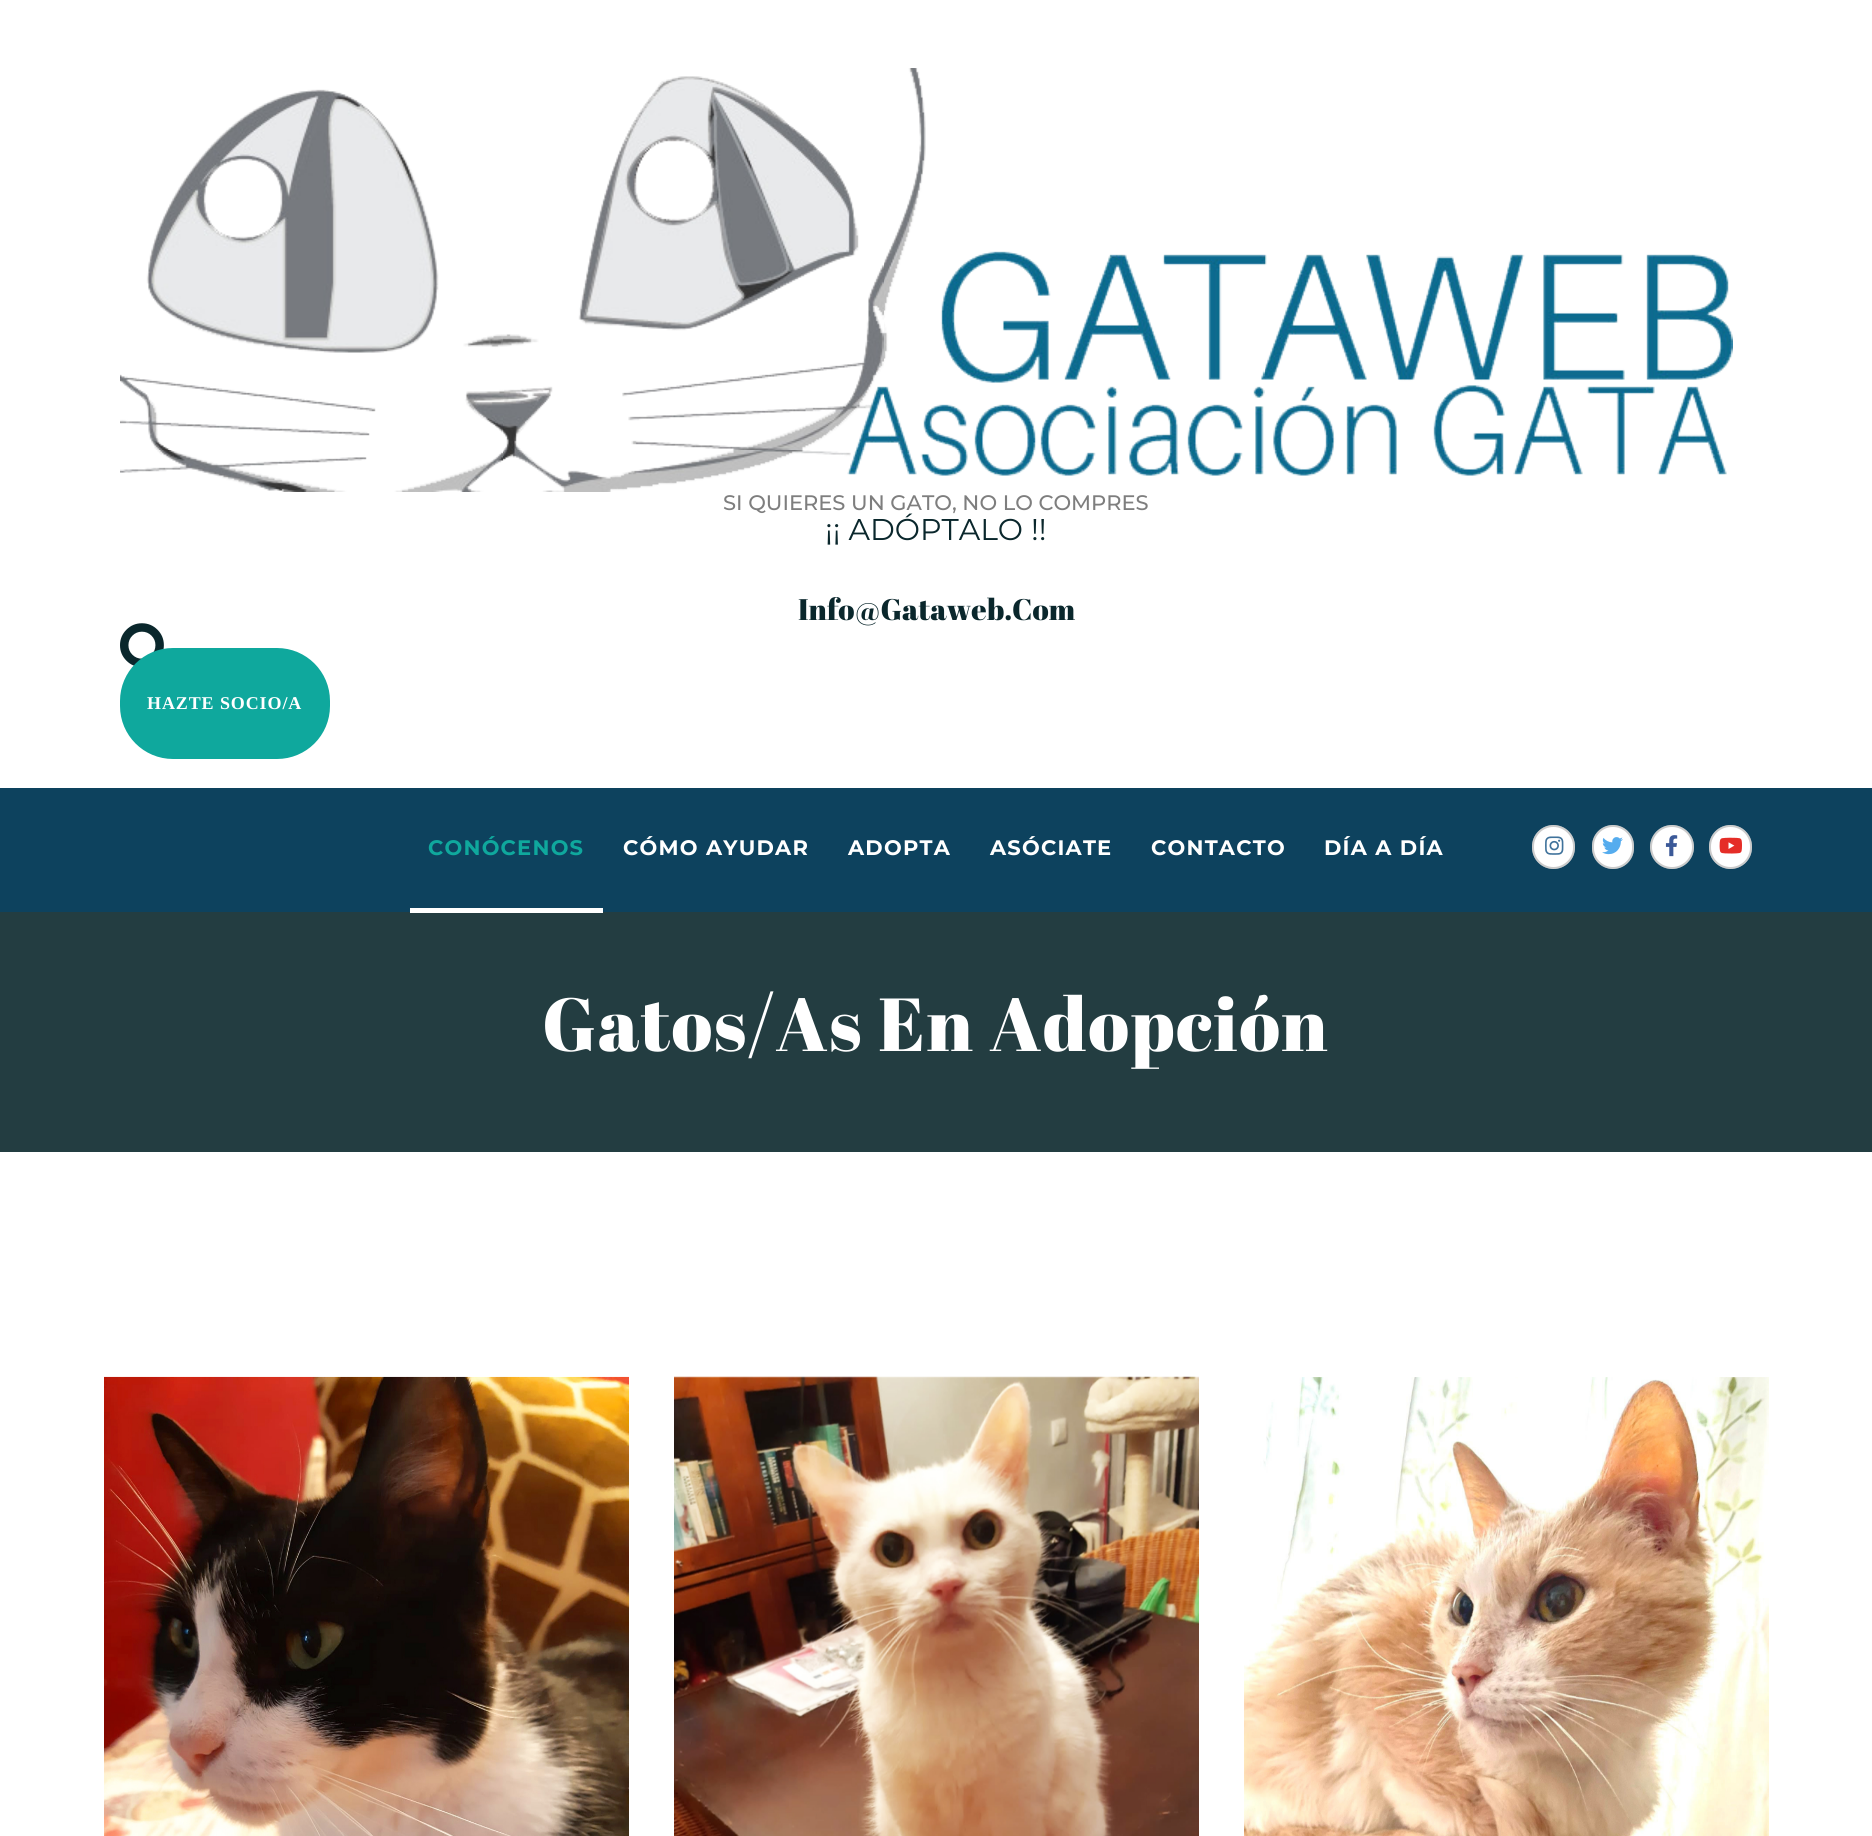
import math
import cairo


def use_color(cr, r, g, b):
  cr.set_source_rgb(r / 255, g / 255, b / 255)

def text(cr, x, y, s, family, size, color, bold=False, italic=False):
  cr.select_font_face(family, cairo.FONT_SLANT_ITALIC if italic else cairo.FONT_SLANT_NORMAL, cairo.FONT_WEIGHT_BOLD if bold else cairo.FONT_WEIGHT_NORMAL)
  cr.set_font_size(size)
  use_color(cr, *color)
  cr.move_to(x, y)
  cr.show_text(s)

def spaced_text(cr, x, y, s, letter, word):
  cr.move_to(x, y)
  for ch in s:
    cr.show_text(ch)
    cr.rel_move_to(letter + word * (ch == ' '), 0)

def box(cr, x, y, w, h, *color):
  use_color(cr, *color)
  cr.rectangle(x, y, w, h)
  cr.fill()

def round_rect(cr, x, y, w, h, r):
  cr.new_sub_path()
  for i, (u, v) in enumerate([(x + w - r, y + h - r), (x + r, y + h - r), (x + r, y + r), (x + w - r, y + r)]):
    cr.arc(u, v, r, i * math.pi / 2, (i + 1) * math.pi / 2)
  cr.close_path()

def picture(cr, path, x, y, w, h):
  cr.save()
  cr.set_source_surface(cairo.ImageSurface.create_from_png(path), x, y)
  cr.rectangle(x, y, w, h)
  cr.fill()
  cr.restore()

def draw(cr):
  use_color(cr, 255, 255, 255)
  cr.paint()
  picture(cr, "img_01.png", 120, 68, 1613, 424)
  picture(cr, "img_02.png", 120, 623, 44, 43)
  use_color(cr, 15, 168, 157)
  round_rect(cr, 122.5, 650.5, 205, 106, 50.5)
  cr.fill_preserve()
  cr.set_line_width(5)
  cr.stroke()
  box(cr, 0, 788, 1872, 124, 13, 66, 94)
  box(cr, 0, 912, 1872, 240, 35, 61, 65)
  box(cr, 410, 908, 193, 5, 255, 255, 255)
  round_rect(cr, 1532, 825, 43, 44, 21.5)
  cr.fill()
  round_rect(cr, 1533, 826, 41, 42, 20.5)
  cr.set_source_rgba(0.494, 0.494, 0.494, 0.4)
  cr.set_line_width(2)
  cr.stroke()
  picture(cr, "img_03.png", 1545, 836, 19, 19)
  use_color(cr, 255, 255, 255)
  round_rect(cr, 1592, 825, 42, 44, 21)
  cr.fill()
  round_rect(cr, 1593, 826, 40, 42, 20)
  cr.set_source_rgba(0.494, 0.494, 0.494, 0.4)
  cr.stroke()
  picture(cr, "img_04.png", 1602, 837, 21, 18)
  use_color(cr, 255, 255, 255)
  cr.arc(1672, 847, 22, 0, 2 * math.pi)
  cr.fill()
  cr.arc(1672, 847, 21, 0, 2 * math.pi)
  cr.set_source_rgba(0.494, 0.494, 0.494, 0.4)
  cr.stroke()
  picture(cr, "img_05.png", 1665, 835, 13, 22)
  use_color(cr, 255, 255, 255)
  round_rect(cr, 1709, 825, 43, 44, 21.5)
  cr.fill()
  round_rect(cr, 1710, 826, 41, 42, 20.5)
  cr.set_source_rgba(0.494, 0.494, 0.494, 0.4)
  cr.stroke()
  picture(cr, "img_06.png", 1719, 837, 23, 17)
  picture(cr, "img_07.png", 104, 1376, 525, 460)
  picture(cr, "img_08.png", 674, 1376, 525, 460)
  picture(cr, "img_09.png", 1244, 1377, 525, 459)
  text(cr, 723, 510, "SI QUIERES UN GATO, NO LO COMPRES", "Montserrat Medium", 21, (126, 126, 126))
  text(cr, 825, 540, "¡¡ ADÓPTALO !!", "Montserrat", 30, (10, 39, 44))
  text(cr, 798, 620, "Info@Gataweb.Com", "Abril Fatface", 29.75, (10, 39, 44))
  cr.select_font_face("Liberation Serif", cairo.FONT_SLANT_NORMAL, cairo.FONT_WEIGHT_BOLD)
  cr.set_font_size(18)
  use_color(cr, 255, 255, 255)
  spaced_text(cr, 147, 709, "HAZTE SOCIO/A", 0.9, 0)
  cr.select_font_face("Montserrat", cairo.FONT_SLANT_NORMAL, cairo.FONT_WEIGHT_BOLD)
  cr.set_font_size(21)
  use_color(cr, 15, 168, 157)
  spaced_text(cr, 428, 855, "CONÓCENOS", 1.25, 0)
  use_color(cr, 255, 255, 255)
  spaced_text(cr, 623, 855, "CÓMO AYUDAR", 1.25, 0)
  spaced_text(cr, 848, 855, "ADOPTA", 1.25, 0)
  spaced_text(cr, 990, 855, "ASÓCIATE", 1.25, 0)
  spaced_text(cr, 1151, 855, "CONTACTO", 1.25, 0)
  spaced_text(cr, 1324, 855, "DÍA A DÍA", 1.25, 0)
  cr.select_font_face("Abril Fatface")
  cr.set_font_size(75)
  spaced_text(cr, 542, 1051, "Gatos/As En Adopción", 1.5, 0)


surface = cairo.ImageSurface(cairo.FORMAT_RGB24, 1872, 1836)
cr = cairo.Context(surface)
options = cairo.FontOptions()
options.set_hint_metrics(cairo.HINT_METRICS_OFF)
options.set_hint_style(cairo.HINT_STYLE_NONE)
cr.set_font_options(options)
cr.set_miter_limit(4)
draw(cr)
surface.write_to_png("out.png")
